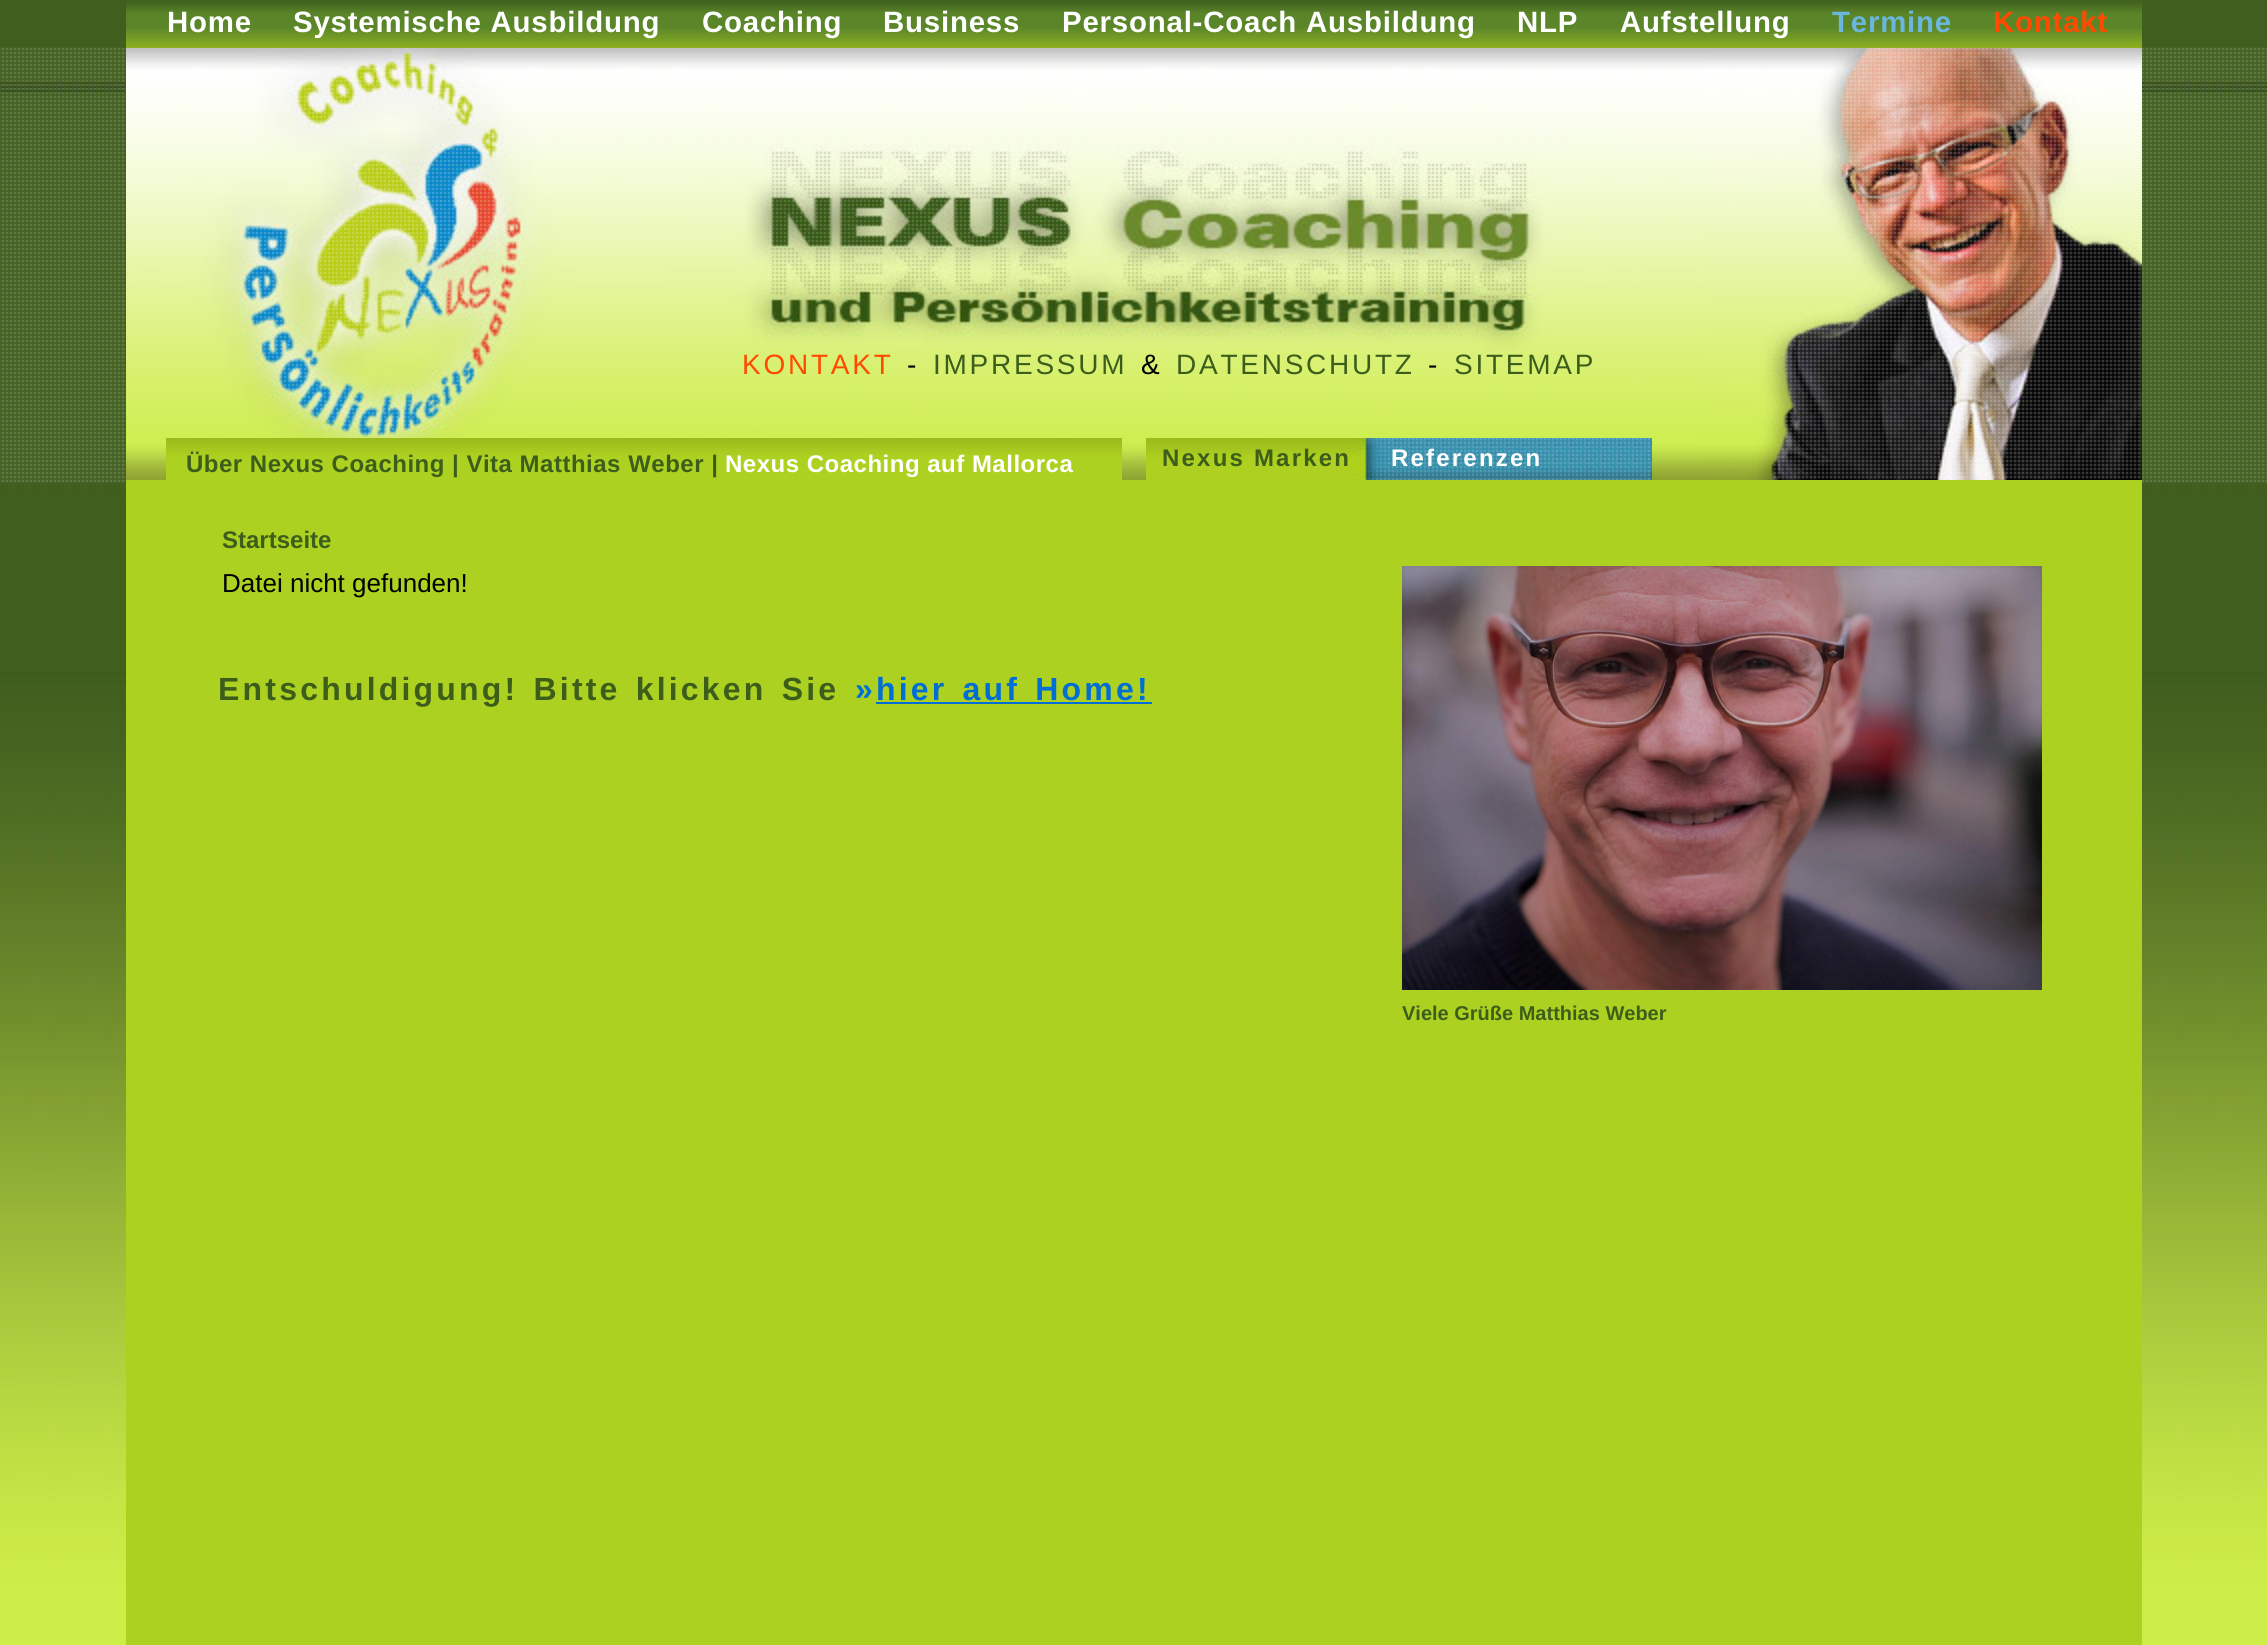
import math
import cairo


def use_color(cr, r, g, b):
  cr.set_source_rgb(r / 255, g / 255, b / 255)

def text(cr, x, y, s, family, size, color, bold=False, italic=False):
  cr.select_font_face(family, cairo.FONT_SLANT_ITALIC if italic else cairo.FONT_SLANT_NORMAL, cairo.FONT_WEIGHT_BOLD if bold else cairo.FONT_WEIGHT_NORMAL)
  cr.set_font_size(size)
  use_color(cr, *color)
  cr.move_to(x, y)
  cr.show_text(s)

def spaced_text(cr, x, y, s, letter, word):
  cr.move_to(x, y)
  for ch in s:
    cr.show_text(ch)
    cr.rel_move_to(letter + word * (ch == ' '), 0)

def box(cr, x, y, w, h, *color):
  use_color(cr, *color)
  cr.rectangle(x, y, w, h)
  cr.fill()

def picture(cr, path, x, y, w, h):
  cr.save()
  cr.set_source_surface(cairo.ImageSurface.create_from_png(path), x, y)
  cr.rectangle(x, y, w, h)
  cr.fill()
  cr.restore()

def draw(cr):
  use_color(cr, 255, 255, 255)
  cr.paint()
  picture(cr, "img_01.png", 0, 0, 2267, 1645)
  picture(cr, "img_02.png", 126, 48, 1582, 432)
  picture(cr, "img_03.png", 126, 0, 2016, 48)
  picture(cr, "img_04.png", 1708, 48, 434, 432)
  gradient = cairo.LinearGradient(644, 438, 644, 490)
  gradient.add_color_stop_rgba(0, 0.604, 0.729, 0.114, 1)
  gradient.add_color_stop_rgba(0.36, 0.678, 0.82, 0.129, 1)
  gradient.add_color_stop_rgba(1, 0.678, 0.82, 0.129, 1)
  cr.set_source(gradient)
  cr.rectangle(166, 438, 956, 42)
  cr.fill()
  picture(cr, "img_05.png", 1146, 438, 506, 42)
  box(cr, 126, 480, 2016, 1165, 173, 209, 33)
  box(cr, 876, 702, 276, 2, 0, 110, 212)
  picture(cr, "img_06.png", 1402, 566, 640, 424)
  cr.select_font_face("Liberation Sans", cairo.FONT_SLANT_NORMAL, cairo.FONT_WEIGHT_BOLD)
  cr.set_font_size(29.4)
  use_color(cr, 255, 255, 255)
  spaced_text(cr, 167, 32, "Home", 0.8, 0)
  spaced_text(cr, 293, 32, "Systemische Ausbildung", 0.8, 0)
  spaced_text(cr, 702, 32, "Coaching", 0.8, 0)
  spaced_text(cr, 883, 32, "Business", 0.8, 0)
  spaced_text(cr, 1062, 32, "Personal-Coach Ausbildung", 0.8, 0)
  spaced_text(cr, 1517, 32, "NLP", 0.8, 0)
  spaced_text(cr, 1620, 32, "Aufstellung", 0.8, 0)
  use_color(cr, 107, 182, 221)
  spaced_text(cr, 1832, 32, "Termine", 0.8, 0)
  use_color(cr, 255, 74, 0)
  spaced_text(cr, 1993, 32, "Kontakt", 0.8, 0)
  cr.select_font_face("Liberation Sans")
  cr.set_font_size(28)
  spaced_text(cr, 742, 374, "KONTAKT", 2.75, 0)
  use_color(cr, 0, 0, 0)
  spaced_text(cr, 907, 374, "-", 2.75, 0)
  use_color(cr, 61, 94, 26)
  spaced_text(cr, 933, 374, "IMPRESSUM", 2.75, 0)
  use_color(cr, 0, 0, 0)
  spaced_text(cr, 1141, 374, "&", 2.75, 0)
  use_color(cr, 61, 94, 26)
  spaced_text(cr, 1176, 374, "DATENSCHUTZ", 2.75, 0)
  use_color(cr, 0, 0, 0)
  spaced_text(cr, 1428, 374, "-", 2.75, 0)
  use_color(cr, 61, 94, 26)
  spaced_text(cr, 1454, 374, "SITEMAP", 2.75, 0)
  cr.select_font_face("Liberation Sans", cairo.FONT_SLANT_NORMAL, cairo.FONT_WEIGHT_BOLD)
  cr.set_font_size(24)
  spaced_text(cr, 186, 472, "Über Nexus Coaching | Vita Matthias Weber |", 0.5, 0)
  use_color(cr, 255, 255, 255)
  spaced_text(cr, 725, 472, "Nexus Coaching auf Mallorca", 0.5, 0)
  use_color(cr, 61, 94, 26)
  spaced_text(cr, 1162, 466, "Nexus Marken", 2.2, 0)
  use_color(cr, 255, 255, 255)
  spaced_text(cr, 1391, 466, "Referenzen", 2.2, 0)
  text(cr, 222, 548, "Startseite", "Liberation Sans", 24, (61, 94, 26), bold=True)
  text(cr, 222, 592, "Datei nicht gefunden!", "Liberation Sans", 26, (0, 0, 0))
  cr.select_font_face("Liberation Sans", cairo.FONT_SLANT_NORMAL, cairo.FONT_WEIGHT_BOLD)
  cr.set_font_size(32)
  use_color(cr, 61, 94, 26)
  spaced_text(cr, 218, 700, "Entschuldigung! Bitte klicken Sie", 3.2, 3)
  use_color(cr, 0, 110, 212)
  spaced_text(cr, 855, 700, "»", 3.2, 0)
  spaced_text(cr, 876, 700, "hier auf Home!", 3.2, 3)
  text(cr, 1402, 1020, "Viele Grüße Matthias Weber", "Liberation Sans", 20, (61, 94, 26), bold=True)


surface = cairo.ImageSurface(cairo.FORMAT_RGB24, 2267, 1645)
cr = cairo.Context(surface)
options = cairo.FontOptions()
options.set_hint_metrics(cairo.HINT_METRICS_OFF)
options.set_hint_style(cairo.HINT_STYLE_NONE)
cr.set_font_options(options)
cr.set_miter_limit(4)
draw(cr)
surface.write_to_png("out.png")
